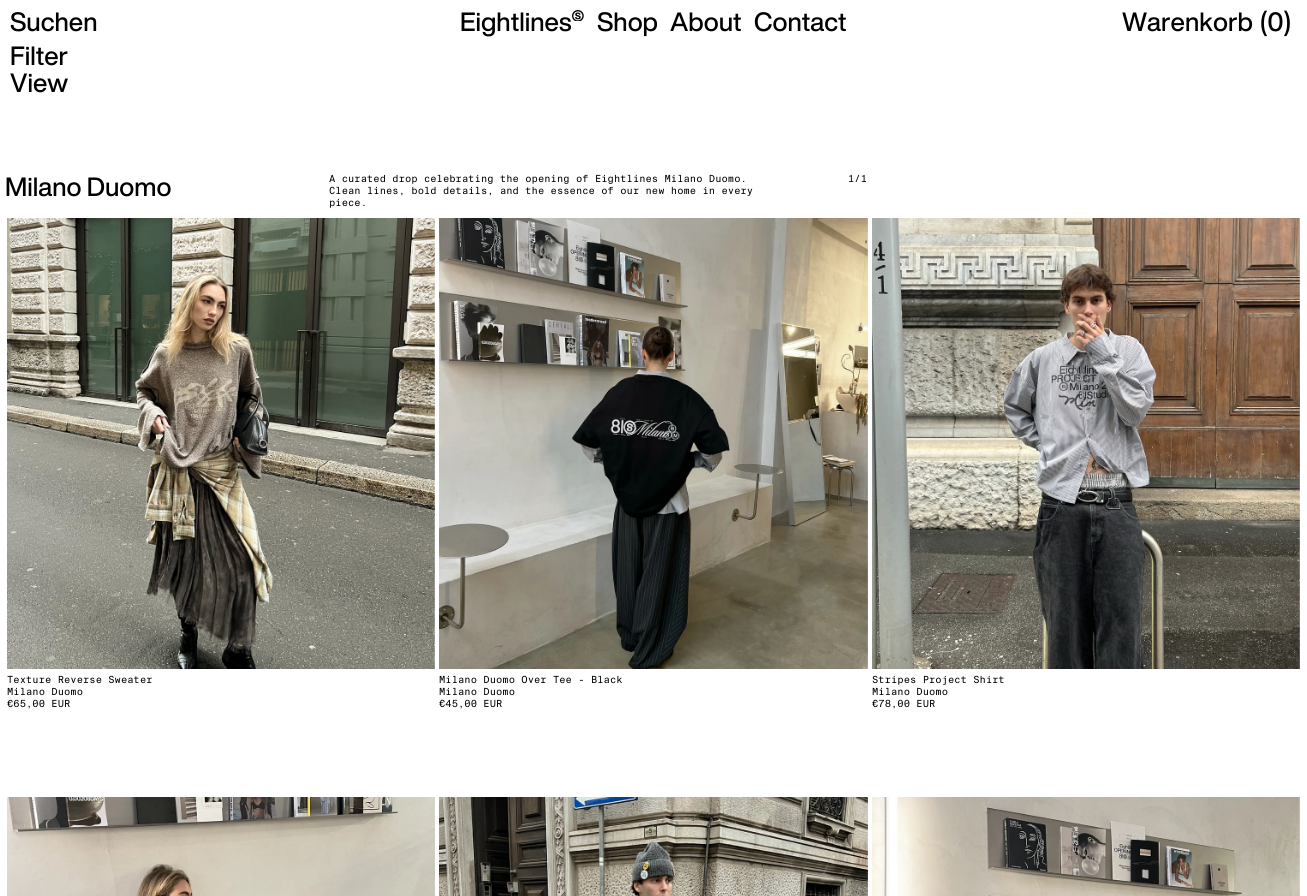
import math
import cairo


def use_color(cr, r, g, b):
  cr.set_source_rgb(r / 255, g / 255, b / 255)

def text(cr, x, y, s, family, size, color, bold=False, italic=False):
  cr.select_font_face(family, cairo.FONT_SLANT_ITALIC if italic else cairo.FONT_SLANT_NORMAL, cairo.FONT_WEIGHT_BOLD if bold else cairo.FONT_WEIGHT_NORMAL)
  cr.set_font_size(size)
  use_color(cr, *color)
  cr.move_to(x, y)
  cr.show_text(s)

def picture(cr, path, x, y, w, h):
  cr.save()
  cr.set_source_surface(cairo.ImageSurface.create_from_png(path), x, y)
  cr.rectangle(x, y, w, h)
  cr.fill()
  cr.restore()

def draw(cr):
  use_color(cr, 255, 255, 255)
  cr.paint()
  picture(cr, "img_01.png", 572, 10, 12, 11)
  picture(cr, "img_02.png", 7, 218, 428, 451)
  picture(cr, "img_03.png", 439, 218, 429, 451)
  picture(cr, "img_04.png", 872, 218, 428, 451)
  picture(cr, "img_05.png", 7, 797, 428, 99)
  picture(cr, "img_06.png", 439, 797, 429, 99)
  picture(cr, "img_07.png", 872, 797, 428, 99)
  text(cr, 10, 31, "Suchen", "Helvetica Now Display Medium", 26, (0, 0, 0))
  text(cr, 460, 31, "Eightlines", "Helvetica Now Display Medium", 26, (0, 0, 0))
  text(cr, 597, 31, "Shop", "Helvetica Now Display Medium", 26, (0, 0, 0))
  text(cr, 670, 31, "About", "Helvetica Now Display Medium", 26, (0, 0, 0))
  text(cr, 754, 31, "Contact", "Helvetica Now Display Medium", 26, (0, 0, 0))
  text(cr, 1122, 31, "Warenkorb", "Helvetica Now Display Medium", 26, (0, 0, 0))
  text(cr, 1260, 31, "(0)", "Helvetica Now Display Medium", 26, (0, 0, 0))
  text(cr, 10, 65, "Filter", "Helvetica Now Display Medium", 26, (0, 0, 0))
  text(cr, 10, 92, "View", "Helvetica Now Display Medium", 26, (0, 0, 0))
  text(cr, 5, 196, "Milano Duomo", "Helvetica Now Display Medium", 26, (0, 0, 0))
  text(cr, 329, 182, "A curated drop celebrating the opening of Eightlines Milano Duomo.", "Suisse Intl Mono", 9.8, (0, 0, 0))
  text(cr, 329, 194, "Clean lines, bold details, and the essence of our new home in every", "Suisse Intl Mono", 9.8, (0, 0, 0))
  text(cr, 329, 206, "piece.", "Suisse Intl Mono", 9.8, (0, 0, 0))
  text(cr, 848, 182, "1/1", "Suisse Intl Mono", 9.8, (0, 0, 0))
  text(cr, 7, 683, "Texture Reverse Sweater", "Suisse Intl Mono", 9.8, (0, 0, 0))
  text(cr, 7, 695, "Milano Duomo", "Suisse Intl Mono", 9.8, (0, 0, 0))
  text(cr, 7, 707, "€65,00 EUR", "Suisse Intl Mono", 9.8, (0, 0, 0))
  text(cr, 439, 683, "Milano Duomo Over Tee - Black", "Suisse Intl Mono", 9.8, (0, 0, 0))
  text(cr, 439, 695, "Milano Duomo", "Suisse Intl Mono", 9.8, (0, 0, 0))
  text(cr, 439, 707, "€45,00 EUR", "Suisse Intl Mono", 9.8, (0, 0, 0))
  text(cr, 872, 683, "Stripes Project Shirt", "Suisse Intl Mono", 9.8, (0, 0, 0))
  text(cr, 872, 695, "Milano Duomo", "Suisse Intl Mono", 9.8, (0, 0, 0))
  text(cr, 872, 707, "€78,00 EUR", "Suisse Intl Mono", 9.8, (0, 0, 0))


surface = cairo.ImageSurface(cairo.FORMAT_RGB24, 1307, 896)
cr = cairo.Context(surface)
options = cairo.FontOptions()
options.set_hint_metrics(cairo.HINT_METRICS_OFF)
options.set_hint_style(cairo.HINT_STYLE_NONE)
cr.set_font_options(options)
cr.set_miter_limit(4)
draw(cr)
surface.write_to_png("out.png")
